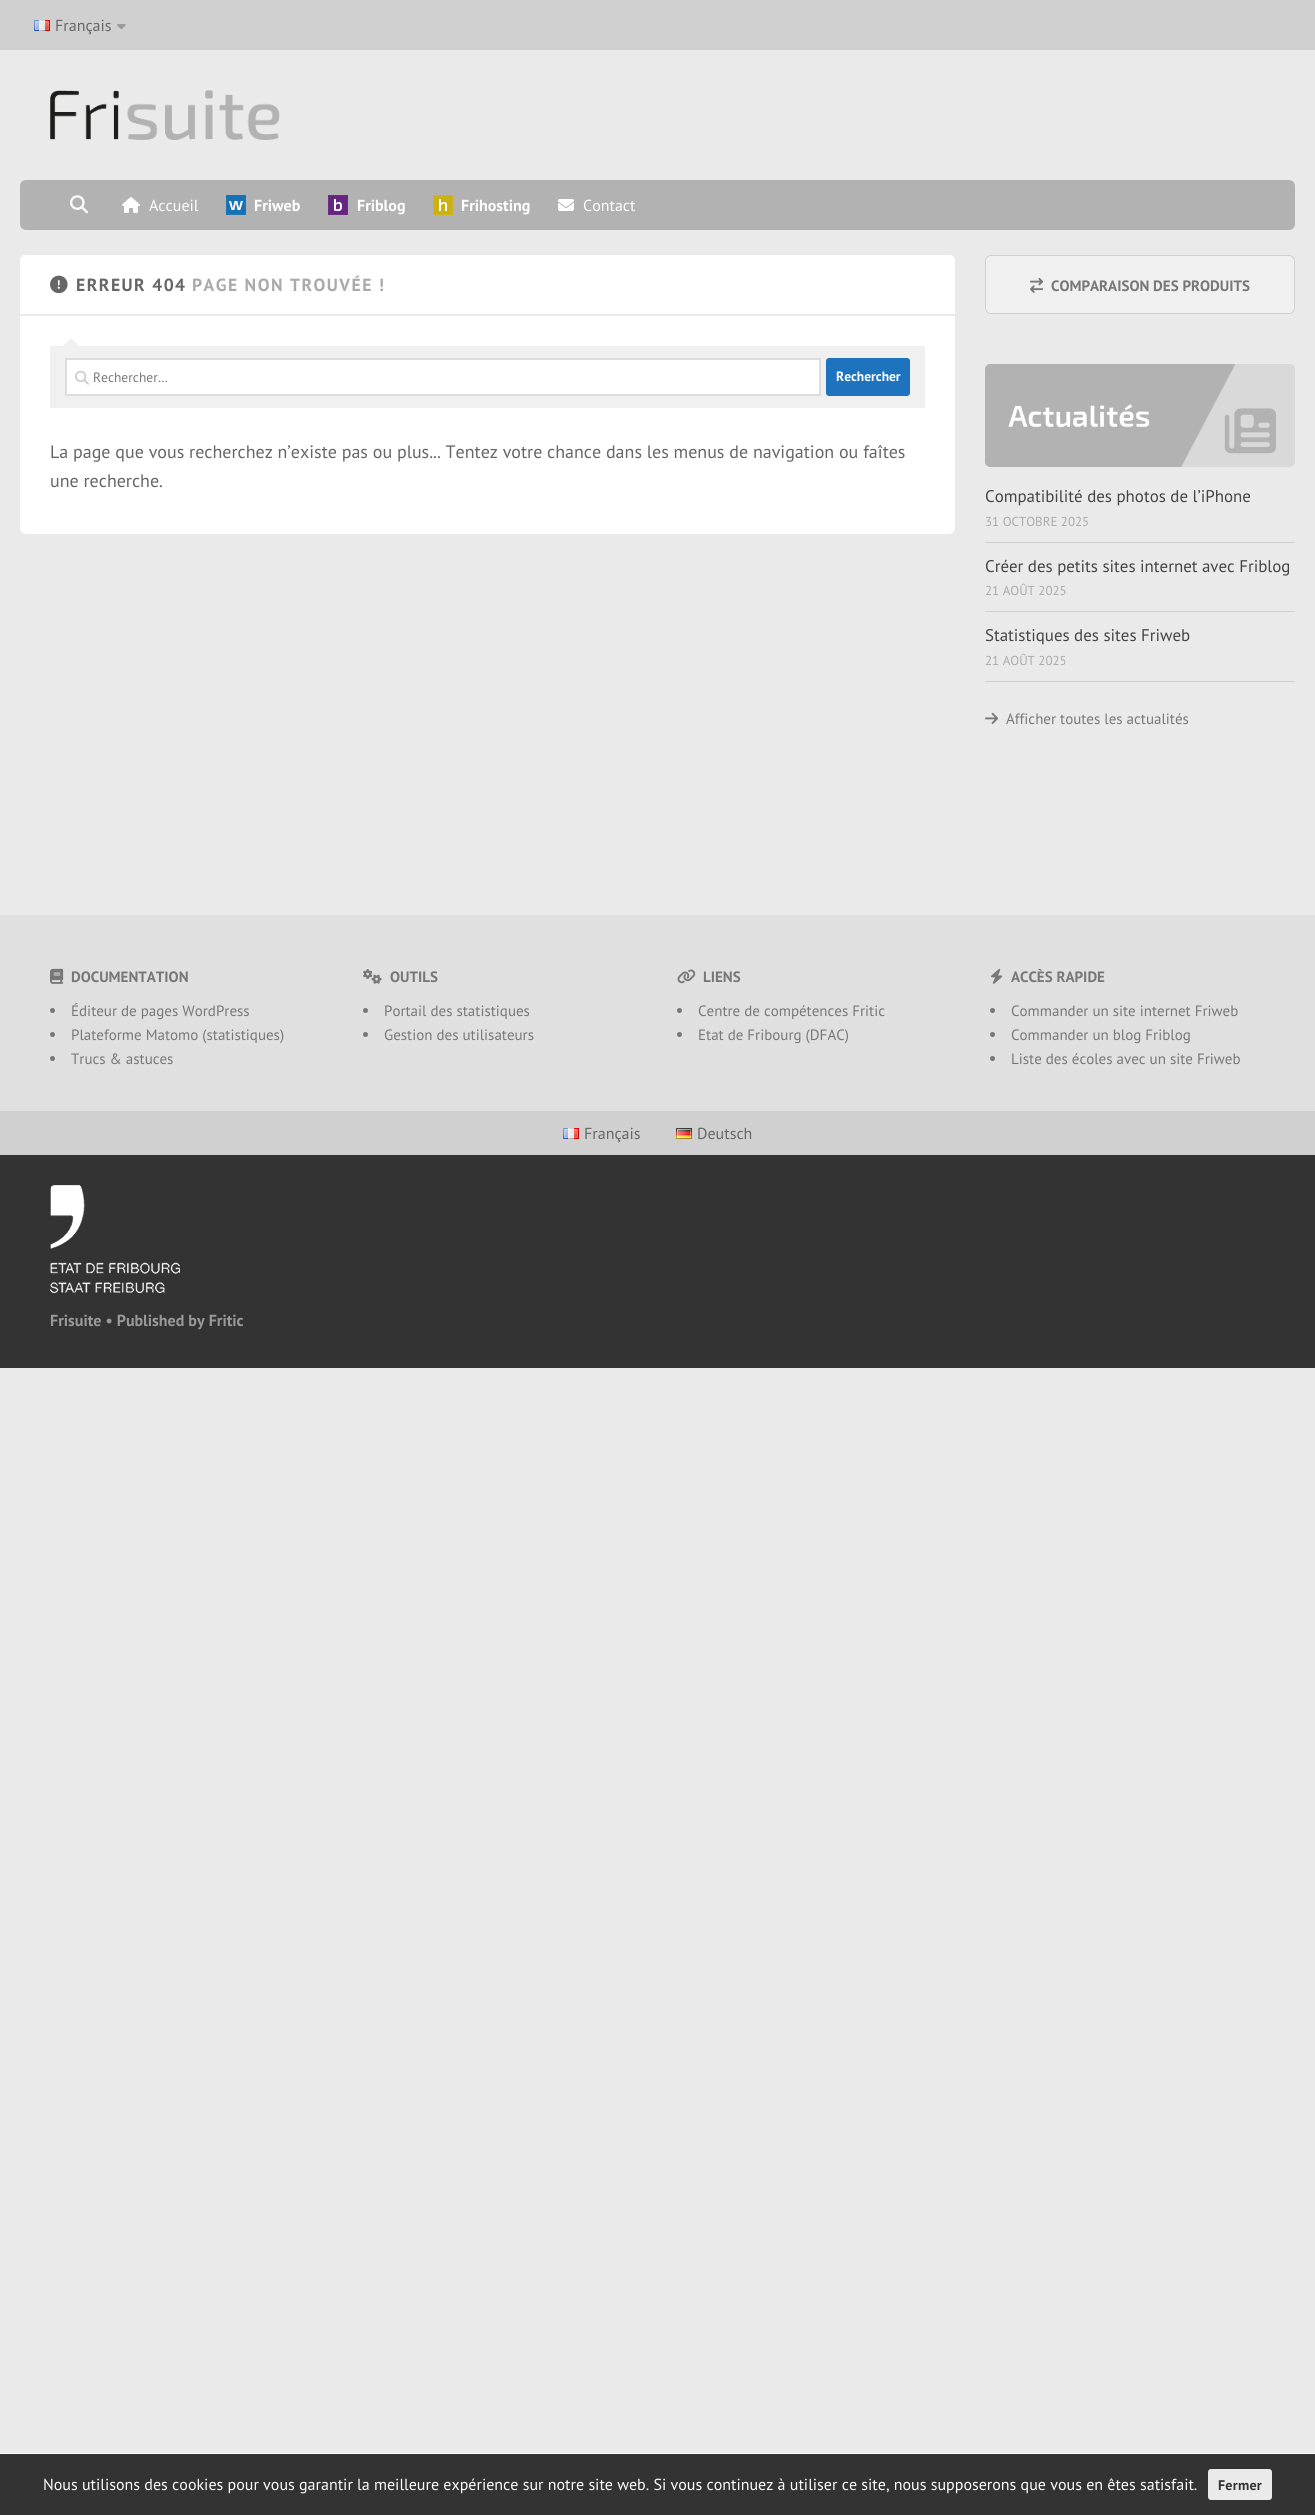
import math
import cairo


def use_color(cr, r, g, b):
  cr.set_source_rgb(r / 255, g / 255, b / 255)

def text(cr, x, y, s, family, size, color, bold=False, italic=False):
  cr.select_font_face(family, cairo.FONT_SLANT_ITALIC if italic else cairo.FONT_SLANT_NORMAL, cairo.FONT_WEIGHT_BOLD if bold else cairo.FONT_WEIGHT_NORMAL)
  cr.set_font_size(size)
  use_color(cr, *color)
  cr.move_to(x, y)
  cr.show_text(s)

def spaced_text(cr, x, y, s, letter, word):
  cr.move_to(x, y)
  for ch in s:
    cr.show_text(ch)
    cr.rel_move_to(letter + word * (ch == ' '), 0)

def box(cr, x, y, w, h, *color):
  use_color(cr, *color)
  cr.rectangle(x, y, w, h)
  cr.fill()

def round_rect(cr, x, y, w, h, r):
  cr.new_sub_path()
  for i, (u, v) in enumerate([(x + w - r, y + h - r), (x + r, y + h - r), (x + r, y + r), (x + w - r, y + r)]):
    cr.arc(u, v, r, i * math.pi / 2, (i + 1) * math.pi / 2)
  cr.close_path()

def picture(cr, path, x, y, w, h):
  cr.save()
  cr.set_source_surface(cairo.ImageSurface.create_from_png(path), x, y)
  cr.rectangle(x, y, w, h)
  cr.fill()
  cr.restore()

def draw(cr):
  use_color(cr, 234, 234, 234)
  cr.paint()
  box(cr, 0, 0, 1315, 50, 208, 208, 208)
  picture(cr, "img_01.png", 34, 20, 16, 11)
  picture(cr, "img_02.png", 117, 24, 9, 6)
  picture(cr, "img_03.png", 50, 90, 230, 50)
  use_color(cr, 178, 178, 178)
  round_rect(cr, 20, 180, 1275, 50, 6)
  cr.fill()
  picture(cr, "img_04.png", 70, 195, 18, 19)
  picture(cr, "img_05.png", 122, 197, 18, 16)
  picture(cr, "img_06.png", 226, 195, 20, 20)
  picture(cr, "img_07.png", 328, 195, 20, 20)
  picture(cr, "img_08.png", 433, 195, 20, 20)
  picture(cr, "img_09.png", 558, 199, 16, 12)
  use_color(cr, 255, 255, 255)
  round_rect(cr, 20, 255, 935, 279, 6)
  cr.fill()
  cr.new_path()
  cr.move_to(26, 255)
  cr.line_to(949, 255)
  cr.curve_to(952.5, 255, 955, 257.5, 955, 261)
  cr.line_to(955, 316)
  cr.line_to(20, 316)
  cr.line_to(20, 261)
  cr.curve_to(20, 257.5, 22.5, 255, 26, 255)
  cr.close_path()
  cr.fill()
  box(cr, 20, 314, 935, 2, 234, 234, 234)
  picture(cr, "img_10.png", 50, 275, 18, 19)
  box(cr, 50, 346, 875, 62, 240, 240, 240)
  use_color(cr, 241, 241, 241)
  cr.new_path()
  cr.move_to(79, 346)
  cr.line_to(63, 346)
  cr.line_to(71, 338)
  cr.close_path()
  cr.fill()
  use_color(cr, 255, 255, 255)
  cr.rectangle(66, 359, 754, 36)
  cr.fill_preserve()
  use_color(cr, 221, 221, 221)
  cr.stroke()
  picture(cr, "img_11.png", 75, 370, 14, 15)
  use_color(cr, 30, 115, 190)
  round_rect(cr, 826, 358, 84, 38, 3)
  cr.fill()
  use_color(cr, 240, 240, 240)
  round_rect(cr, 985.5, 255.5, 309, 58, 5.5)
  cr.fill_preserve()
  use_color(cr, 208, 208, 208)
  cr.set_line_width(1)
  cr.stroke()
  picture(cr, "img_12.png", 1030, 277, 14, 16)
  picture(cr, "img_13.png", 985, 364, 310, 103)
  box(cr, 985, 542, 310, 1, 208, 208, 208)
  box(cr, 985, 611, 310, 1, 208, 208, 208)
  box(cr, 985, 681, 310, 1, 208, 208, 208)
  picture(cr, "img_14.png", 985, 712, 14, 12)
  box(cr, 0, 915, 1315, 196, 224, 224, 224)
  picture(cr, "img_15.png", 50, 968, 14, 16)
  use_color(cr, 119, 119, 119)
  cr.arc(52.5, 1010.5, 2.5, 0, 2 * math.pi)
  cr.fill()
  cr.arc(52.5, 1034.5, 2.5, 0, 2 * math.pi)
  cr.fill()
  cr.arc(52.5, 1058.5, 2.5, 0, 2 * math.pi)
  cr.fill()
  picture(cr, "img_16.png", 363, 969, 19, 15)
  cr.arc(365.5, 1010.5, 2.5, 0, 2 * math.pi)
  cr.fill()
  cr.arc(365.5, 1034.5, 2.5, 0, 2 * math.pi)
  cr.fill()
  picture(cr, "img_17.png", 677, 969, 19, 15)
  cr.arc(679.5, 1010.5, 2.5, 0, 2 * math.pi)
  cr.fill()
  cr.arc(679.5, 1034.5, 2.5, 0, 2 * math.pi)
  cr.fill()
  picture(cr, "img_18.png", 991, 968, 12, 16)
  cr.arc(992.5, 1010.5, 2.5, 0, 2 * math.pi)
  cr.fill()
  cr.arc(992.5, 1034.5, 2.5, 0, 2 * math.pi)
  cr.fill()
  cr.arc(992.5, 1058.5, 2.5, 0, 2 * math.pi)
  cr.fill()
  box(cr, 0, 1111, 1315, 44, 208, 208, 208)
  picture(cr, "img_01.png", 563, 1128, 16, 11)
  picture(cr, "img_19.png", 676, 1128, 16, 11)
  box(cr, 0, 1155, 1315, 213, 51, 51, 51)
  picture(cr, "img_20.png", 50, 1185, 130, 108)
  box(cr, 0, 2454, 1315, 61, 51, 51, 51)
  box(cr, 0, 2453, 1315, 1, 255, 255, 255)
  use_color(cr, 234, 234, 234)
  round_rect(cr, 1208, 2469, 64, 31, 3)
  cr.fill()
  text(cr, 55, 31, "Français", "PT Sans", 16, (102, 102, 102))
  text(cr, 149, 211, "Accueil", "PT Sans", 16, (255, 255, 255))
  text(cr, 254, 211, "Friweb", "PT Sans", 16, (255, 255, 255), bold=True)
  text(cr, 357, 211, "Friblog", "PT Sans", 16, (255, 255, 255), bold=True)
  text(cr, 461, 211, "Frihosting", "PT Sans", 16, (255, 255, 255), bold=True)
  text(cr, 583, 211, "Contact", "PT Sans", 16, (255, 255, 255))
  cr.select_font_face("PT Sans", cairo.FONT_SLANT_NORMAL, cairo.FONT_WEIGHT_BOLD)
  cr.set_font_size(17.6)
  use_color(cr, 102, 102, 102)
  spaced_text(cr, 76, 291, "ERREUR 404", 1.5, 0)
  use_color(cr, 170, 170, 170)
  spaced_text(cr, 192, 291, "PAGE NON TROUVÉE !", 1.5, 0)
  text(cr, 93, 382, "Rechercher…", "PT Sans", 13.5, (119, 119, 119))
  text(cr, 836, 381, "Rechercher", "PT Sans", 13.5, (255, 255, 255), bold=True)
  text(cr, 50, 458, "La page que vous recherchez n’existe pas ou plus... Tentez votre chance dans les menus de navigation ou faîtes", "PT Sans", 18, (102, 102, 102))
  text(cr, 50, 487, "une recherche.", "PT Sans", 18, (102, 102, 102))
  text(cr, 1051, 291, "COMPARAISON DES PRODUITS", "PT Sans", 15, (119, 119, 119), bold=True)
  text(cr, 985, 502, "Compatibilité des photos de l’iPhone", "PT Sans", 16.9, (68, 68, 68))
  text(cr, 985, 526, "31 OCTOBRE 2025", "PT Sans", 13, (170, 170, 170))
  text(cr, 985, 572, "Créer des petits sites internet avec Friblog", "PT Sans", 16.9, (68, 68, 68))
  text(cr, 985, 595, "21 AOÛT 2025", "PT Sans", 13, (170, 170, 170))
  text(cr, 985, 641, "Statistiques des sites Friweb", "PT Sans", 16.9, (68, 68, 68))
  text(cr, 985, 665, "21 AOÛT 2025", "PT Sans", 13, (170, 170, 170))
  text(cr, 1006, 724, "Afficher toutes les actualités", "PT Sans", 15, (119, 119, 119))
  text(cr, 71, 982, "DOCUMENTATION", "PT Sans", 15, (119, 119, 119), bold=True)
  text(cr, 71, 1016, "Éditeur de pages WordPress", "PT Sans", 15, (119, 119, 119))
  text(cr, 71, 1040, "Plateforme Matomo (statistiques)", "PT Sans", 15, (119, 119, 119))
  text(cr, 71, 1064, "Trucs & astuces", "PT Sans", 15, (119, 119, 119))
  text(cr, 390, 982, "OUTILS", "PT Sans", 15, (119, 119, 119), bold=True)
  text(cr, 384, 1016, "Portail des statistiques", "PT Sans", 15, (119, 119, 119))
  text(cr, 384, 1040, "Gestion des utilisateurs", "PT Sans", 15, (119, 119, 119))
  text(cr, 703, 982, "LIENS", "PT Sans", 15, (119, 119, 119), bold=True)
  text(cr, 698, 1016, "Centre de compétences Fritic", "PT Sans", 15, (119, 119, 119))
  text(cr, 698, 1040, "Etat de Fribourg (DFAC)", "PT Sans", 15, (119, 119, 119))
  text(cr, 1011, 982, "ACCÈS RAPIDE", "PT Sans", 15, (119, 119, 119), bold=True)
  text(cr, 1011, 1016, "Commander un site internet Friweb", "PT Sans", 15, (119, 119, 119))
  text(cr, 1011, 1040, "Commander un blog Friblog", "PT Sans", 15, (119, 119, 119))
  text(cr, 1011, 1064, "Liste des écoles avec un site Friweb", "PT Sans", 15, (119, 119, 119))
  text(cr, 584, 1139, "Français", "PT Sans", 16, (102, 102, 102))
  text(cr, 697, 1139, "Deutsch", "PT Sans", 16, (102, 102, 102))
  text(cr, 50, 1326, "Frisuite • Published by Fritic", "PT Sans", 16, (153, 153, 153), bold=True)
  text(cr, 43, 2490, "Nous utilisons des cookies pour vous garantir la meilleure expérience sur notre site web. Si vous continuez à utiliser ce site, nous supposerons que vous en êtes satisfait.", "PT Sans", 16, (255, 255, 255))
  cr.select_font_face("PT Sans", cairo.FONT_SLANT_NORMAL, cairo.FONT_WEIGHT_BOLD)
  cr.set_font_size(14)
  use_color(cr, 51, 51, 51)
  spaced_text(cr, 1218, 2490, "Fermer", 0.25, 0)


surface = cairo.ImageSurface(cairo.FORMAT_RGB24, 1315, 2515)
cr = cairo.Context(surface)
options = cairo.FontOptions()
options.set_hint_metrics(cairo.HINT_METRICS_OFF)
options.set_hint_style(cairo.HINT_STYLE_NONE)
cr.set_font_options(options)
cr.set_miter_limit(4)
draw(cr)
surface.write_to_png("out.png")
